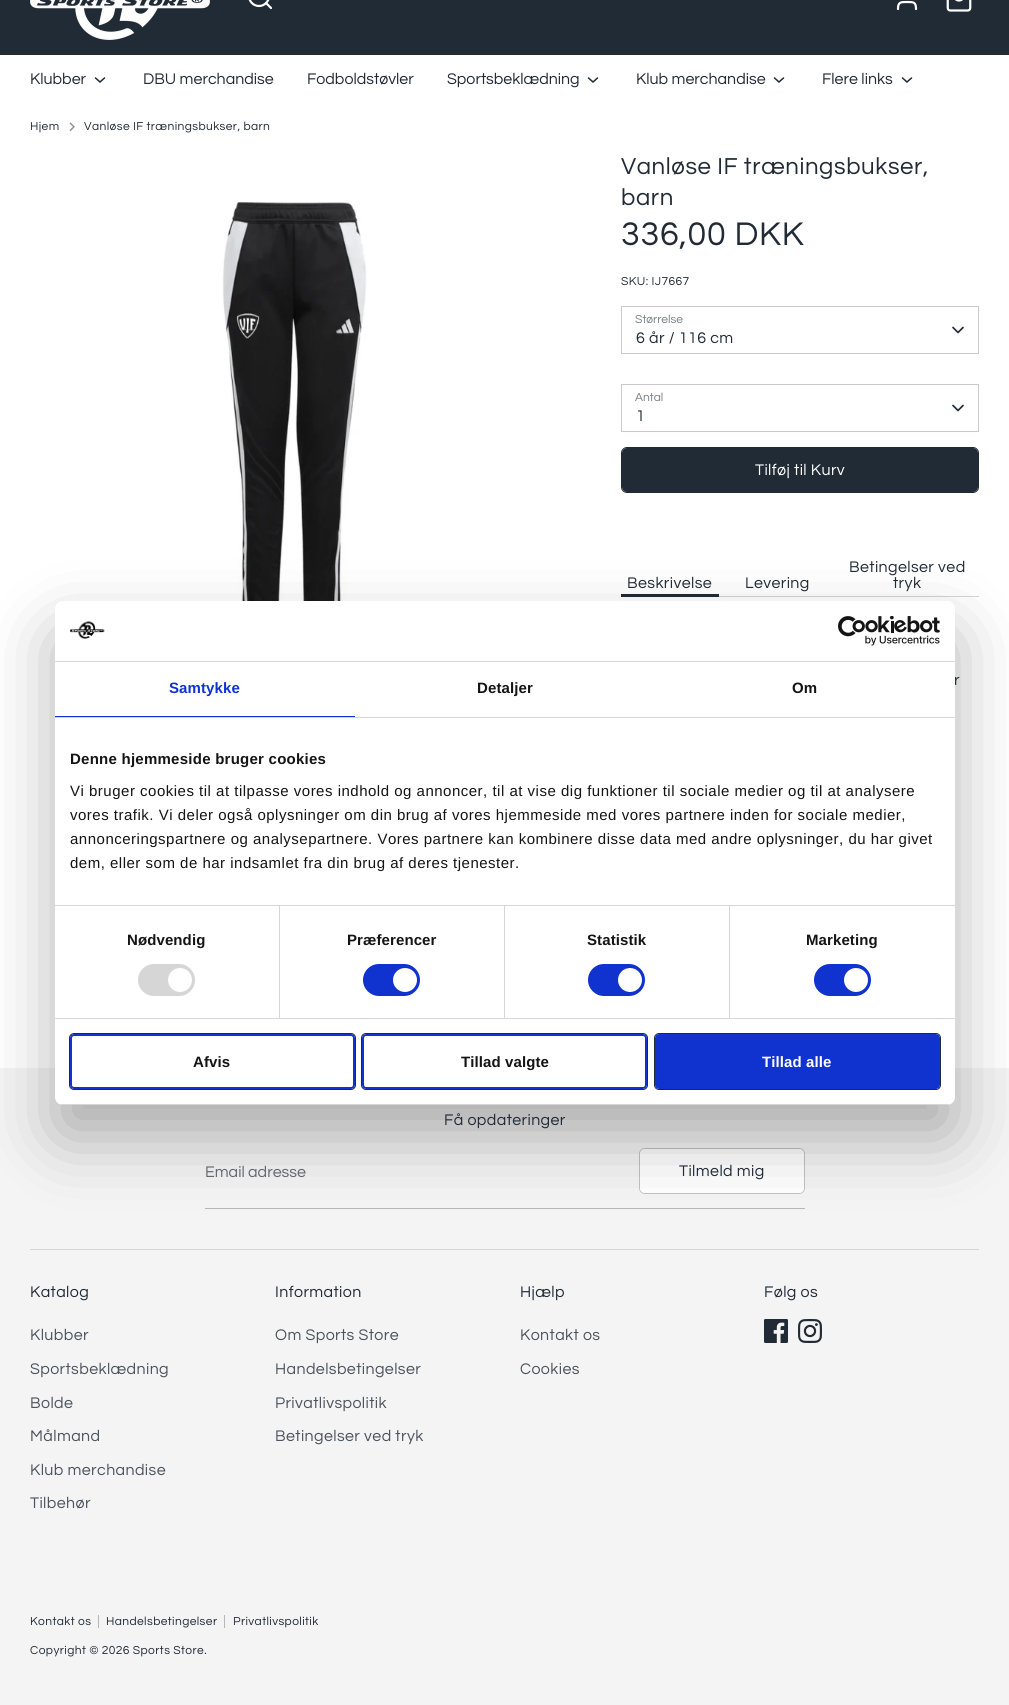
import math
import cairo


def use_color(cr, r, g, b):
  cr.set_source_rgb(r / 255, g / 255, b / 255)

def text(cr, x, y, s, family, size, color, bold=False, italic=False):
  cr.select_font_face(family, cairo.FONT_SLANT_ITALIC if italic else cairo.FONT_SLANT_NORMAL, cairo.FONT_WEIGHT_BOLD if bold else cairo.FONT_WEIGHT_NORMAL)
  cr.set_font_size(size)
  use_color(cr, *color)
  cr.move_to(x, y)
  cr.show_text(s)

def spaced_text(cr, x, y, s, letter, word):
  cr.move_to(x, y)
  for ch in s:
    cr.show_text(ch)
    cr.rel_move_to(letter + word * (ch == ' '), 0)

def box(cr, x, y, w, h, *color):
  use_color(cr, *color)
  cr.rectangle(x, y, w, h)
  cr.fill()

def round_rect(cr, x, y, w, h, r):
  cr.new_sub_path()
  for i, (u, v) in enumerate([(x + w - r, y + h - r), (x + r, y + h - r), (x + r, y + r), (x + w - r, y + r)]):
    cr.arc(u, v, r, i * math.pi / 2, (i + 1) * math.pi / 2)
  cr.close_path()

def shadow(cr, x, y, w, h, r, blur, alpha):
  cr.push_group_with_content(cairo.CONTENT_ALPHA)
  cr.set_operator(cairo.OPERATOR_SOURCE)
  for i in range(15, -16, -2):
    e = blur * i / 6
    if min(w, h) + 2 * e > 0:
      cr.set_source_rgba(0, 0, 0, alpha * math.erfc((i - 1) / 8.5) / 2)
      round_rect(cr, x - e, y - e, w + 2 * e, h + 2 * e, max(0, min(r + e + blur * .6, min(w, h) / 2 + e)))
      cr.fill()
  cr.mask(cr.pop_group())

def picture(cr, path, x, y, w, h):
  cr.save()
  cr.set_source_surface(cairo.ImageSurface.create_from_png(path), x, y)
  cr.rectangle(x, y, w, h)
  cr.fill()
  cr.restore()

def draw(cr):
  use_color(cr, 255, 255, 255)
  cr.paint()
  box(cr, 0, 0, 1009, 55, 33, 43, 54)
  picture(cr, "img_01.png", 30, 0, 180, 40)
  cr.arc(259, -4, 10, 0, 2 * math.pi)
  use_color(cr, 255, 255, 255)
  cr.set_line_width(2.2)
  cr.stroke()
  cr.new_path()
  cr.move_to(271, 8)
  cr.line_to(266, 3)
  cr.set_line_cap(cairo.LINE_CAP_ROUND)
  cr.set_line_join(cairo.LINE_JOIN_ROUND)
  cr.stroke()
  cr.new_path()
  cr.move_to(916, 9)
  cr.curve_to(916, 2, 913.5, 2, 907, 2)
  cr.curve_to(900.5, 2, 898, 2, 898, 9)
  cr.stroke()
  picture(cr, "img_02.png", 946, 0, 26, 12)
  cr.new_path()
  cr.move_to(95.5, 78)
  cr.line_to(100, 82)
  cr.line_to(104.5, 78)
  use_color(cr, 33, 43, 54)
  cr.set_line_width(1.5)
  cr.set_line_join(cairo.LINE_JOIN_MITER)
  cr.stroke()
  cr.new_path()
  cr.move_to(588.5, 78)
  cr.line_to(593, 82)
  cr.line_to(597.5, 78)
  cr.stroke()
  cr.new_path()
  cr.move_to(774.5, 78)
  cr.line_to(779, 82)
  cr.line_to(783.5, 78)
  cr.stroke()
  cr.new_path()
  cr.move_to(902.5, 78)
  cr.line_to(907, 82)
  cr.line_to(911.5, 78)
  cr.stroke()
  picture(cr, "img_03.png", 69, 122, 6, 10)
  picture(cr, "img_04.png", 222, 202, 145, 399)
  cr.rectangle(621.5, 306.5, 357, 47)
  use_color(cr, 200, 202, 205)
  cr.set_line_width(1)
  cr.set_line_cap(cairo.LINE_CAP_BUTT)
  cr.stroke()
  cr.new_path()
  cr.move_to(953, 327.5)
  cr.line_to(958, 332.5)
  cr.line_to(963, 327.5)
  use_color(cr, 33, 43, 54)
  cr.set_line_width(1.7)
  cr.set_line_cap(cairo.LINE_CAP_ROUND)
  cr.set_line_join(cairo.LINE_JOIN_ROUND)
  cr.stroke()
  cr.rectangle(621.5, 384.5, 357, 47)
  use_color(cr, 200, 202, 205)
  cr.set_line_width(1)
  cr.set_line_cap(cairo.LINE_CAP_BUTT)
  cr.set_line_join(cairo.LINE_JOIN_MITER)
  cr.stroke()
  cr.new_path()
  cr.move_to(953, 405.5)
  cr.line_to(958, 410.5)
  cr.line_to(963, 405.5)
  use_color(cr, 33, 43, 54)
  cr.set_line_width(1.7)
  cr.set_line_cap(cairo.LINE_CAP_ROUND)
  cr.set_line_join(cairo.LINE_JOIN_ROUND)
  cr.stroke()
  round_rect(cr, 621.5, 447.5, 357, 45, 5.5)
  cr.set_line_width(1)
  cr.set_line_cap(cairo.LINE_CAP_BUTT)
  cr.set_line_join(cairo.LINE_JOIN_MITER)
  cr.stroke()
  round_rect(cr, 622, 448, 356, 44, 5)
  cr.fill()
  box(cr, 719, 596, 260, 1, 211, 213, 215)
  box(cr, 621, 594, 98, 3, 33, 43, 54)
  box(cr, 0, 1068, 1009, 637, 244, 244, 244)
  box(cr, 205, 1208, 600, 1, 181, 184, 187)
  round_rect(cr, 639.5, 1148.5, 165, 45, 5.5)
  use_color(cr, 191, 194, 197)
  cr.stroke()
  use_color(cr, 255, 255, 255)
  round_rect(cr, 640, 1149, 164, 44, 5)
  cr.fill()
  use_color(cr, 0, 0, 0)
  shadow(cr, 55, 633, 900, 504, 8, 34, 0.3)
  use_color(cr, 255, 255, 255)
  round_rect(cr, 55, 601, 900, 504, 8)
  cr.fill()
  box(cr, 55, 661, 900, 1, 214, 214, 214)
  picture(cr, "img_05.png", 70, 621, 35, 18)
  picture(cr, "img_06.png", 838, 616, 102, 30)
  box(cr, 55, 717, 900, 1, 214, 214, 214)
  box(cr, 55, 716, 300, 1, 16, 50, 207)
  box(cr, 55, 905, 900, 1, 214, 214, 214)
  box(cr, 55, 1018, 900, 1, 214, 214, 214)
  box(cr, 279, 906, 1, 112, 214, 214, 214)
  round_rect(cr, 138, 964, 57, 32, 16)
  cr.fill()
  use_color(cr, 255, 255, 255)
  cr.arc(180, 980, 12, 0, 2 * math.pi)
  cr.fill()
  box(cr, 504, 906, 1, 112, 214, 214, 214)
  use_color(cr, 16, 50, 207)
  round_rect(cr, 363, 964, 57, 32, 16)
  cr.fill()
  use_color(cr, 255, 255, 255)
  cr.arc(405, 980, 12, 0, 2 * math.pi)
  cr.fill()
  box(cr, 729, 906, 1, 112, 214, 214, 214)
  use_color(cr, 16, 50, 207)
  round_rect(cr, 588, 964, 57, 32, 16)
  cr.fill()
  use_color(cr, 255, 255, 255)
  cr.arc(630, 980, 12, 0, 2 * math.pi)
  cr.fill()
  use_color(cr, 16, 50, 207)
  round_rect(cr, 814, 964, 57, 32, 16)
  cr.fill()
  use_color(cr, 255, 255, 255)
  cr.arc(856, 980, 12, 0, 2 * math.pi)
  cr.fill()
  cr.save()
  round_rect(cr, 55, 601, 900, 504, 8)
  cr.clip()
  box(cr, 55, 1104, 900, 1, 214, 214, 214)
  cr.restore()
  round_rect(cr, 69.5, 1033.5, 286, 56, 4.5)
  use_color(cr, 33, 43, 54)
  cr.stroke()
  round_rect(cr, 71, 1035, 283, 53, 3)
  use_color(cr, 16, 50, 207)
  cr.set_line_width(2)
  cr.stroke()
  round_rect(cr, 361.5, 1033.5, 286, 56, 4.5)
  use_color(cr, 33, 43, 54)
  cr.set_line_width(1)
  cr.stroke()
  round_rect(cr, 363, 1035, 283, 53, 3)
  use_color(cr, 16, 50, 207)
  cr.set_line_width(2)
  cr.stroke()
  round_rect(cr, 654.5, 1033.5, 286, 56, 4.5)
  use_color(cr, 33, 43, 54)
  cr.set_line_width(1)
  cr.stroke()
  use_color(cr, 16, 50, 207)
  round_rect(cr, 656, 1035, 283, 53, 3)
  cr.fill_preserve()
  cr.set_line_width(2)
  cr.stroke()
  box(cr, 30, 1249, 949, 1, 212, 214, 216)
  picture(cr, "img_07.png", 764, 1319, 24, 24)
  picture(cr, "img_08.png", 798, 1319, 24, 24)
  box(cr, 98, 1615, 1, 13, 181, 184, 187)
  box(cr, 224, 1615, 1, 13, 181, 184, 187)
  text(cr, 30, 84, "Klubber", "Questrial", 16, (33, 43, 54))
  text(cr, 143, 84, "DBU merchandise", "Questrial", 16, (33, 43, 54))
  text(cr, 307, 84, "Fodboldstøvler", "Questrial", 16, (33, 43, 54))
  text(cr, 447, 84, "Sportsbeklædning", "Questrial", 16, (33, 43, 54))
  text(cr, 636, 84, "Klub merchandise", "Questrial", 16, (33, 43, 54))
  text(cr, 822, 84, "Flere links", "Questrial", 16, (33, 43, 54))
  cr.set_font_size(12)
  spaced_text(cr, 30, 130, "Hjem", 0.4, 0)
  spaced_text(cr, 84, 130, "Vanløse IF træningsbukser, barn", 0.4, 0)
  cr.set_font_size(24)
  spaced_text(cr, 621, 174, "Vanløse IF træningsbukser,", 0.6, 0)
  spaced_text(cr, 621, 205, "barn", 0.6, 0)
  cr.set_font_size(34)
  spaced_text(cr, 621, 245, "336,00 DKK", 0.75, 0)
  cr.set_font_size(12)
  spaced_text(cr, 621, 285, "SKU: IJ7667", 0.4, 0)
  text(cr, 635, 323, "Størrelse", "Questrial", 12, (122, 128, 134))
  cr.set_font_size(16)
  use_color(cr, 33, 43, 54)
  spaced_text(cr, 636, 343, "6 år / 116 cm", 0.4, 0)
  text(cr, 635, 401, "Antal", "Questrial", 12, (122, 128, 134))
  cr.set_font_size(16)
  use_color(cr, 33, 43, 54)
  spaced_text(cr, 636, 421, "1", 0.4, 0)
  use_color(cr, 255, 255, 255)
  spaced_text(cr, 755, 475, "Tilføj til Kurv", 0.4, 0)
  use_color(cr, 33, 43, 54)
  spaced_text(cr, 627, 588, "Beskrivelse", 0.4, 0)
  spaced_text(cr, 745, 588, "Levering", 0.4, 0)
  spaced_text(cr, 849, 572, "Betingelser ved", 0.4, 0)
  spaced_text(cr, 893, 588, "tryk", 0.4, 0)
  spaced_text(cr, 954, 685, "r", 0.4, 0)
  cr.select_font_face("Liberation Sans", cairo.FONT_SLANT_NORMAL, cairo.FONT_WEIGHT_BOLD)
  cr.set_font_size(15)
  use_color(cr, 16, 50, 207)
  spaced_text(cr, 169, 693, "Samtykke", 0.1, 0)
  use_color(cr, 20, 20, 20)
  spaced_text(cr, 477, 693, "Detaljer", 0.1, 0)
  spaced_text(cr, 792, 693, "Om", 0.1, 0)
  spaced_text(cr, 70, 764, "Denne hjemmeside bruger cookies", 0.25, 0)
  cr.select_font_face("Liberation Sans")
  spaced_text(cr, 70, 796, "Vi bruger cookies til at tilpasse vores indhold og annoncer, til at vise dig funktioner til sociale medier og til at analysere", 0.5, 0)
  spaced_text(cr, 70, 820, "vores trafik. Vi deler også oplysninger om din brug af vores hjemmeside med vores partnere inden for sociale medier,", 0.5, 0)
  spaced_text(cr, 70, 844, "annonceringspartnere og analysepartnere. Vores partnere kan kombinere disse data med andre oplysninger, du har givet", 0.5, 0)
  spaced_text(cr, 70, 868, "dem, eller som de har indsamlet fra din brug af deres tjenester.", 0.5, 0)
  cr.select_font_face("Liberation Sans", cairo.FONT_SLANT_NORMAL, cairo.FONT_WEIGHT_BOLD)
  spaced_text(cr, 127, 945, "Nødvendig", 0.1, 0)
  spaced_text(cr, 347, 945, "Præferencer", 0.1, 0)
  spaced_text(cr, 587, 945, "Statistik", 0.1, 0)
  spaced_text(cr, 806, 945, "Marketing", 0.1, 0)
  spaced_text(cr, 193, 1067, "Afvis", 0.1, 0)
  spaced_text(cr, 461, 1067, "Tillad valgte", 0.1, 0)
  use_color(cr, 255, 255, 255)
  spaced_text(cr, 762, 1067, "Tillad alle", 0.1, 0)
  cr.select_font_face("Questrial")
  cr.set_font_size(16)
  use_color(cr, 33, 43, 54)
  spaced_text(cr, 444, 1125, "Få opdateringer", 0.4, 0)
  text(cr, 205, 1177, "Email adresse", "Questrial", 16, (96, 103, 111))
  use_color(cr, 33, 43, 54)
  spaced_text(cr, 679, 1176, "Tilmeld mig", 0.4, 0)
  spaced_text(cr, 30, 1297, "Katalog", 0.4, 0)
  use_color(cr, 75, 83, 92)
  spaced_text(cr, 30, 1340, "Klubber", 0.4, 0)
  spaced_text(cr, 30, 1374, "Sportsbeklædning", 0.4, 0)
  spaced_text(cr, 30, 1408, "Bolde", 0.4, 0)
  spaced_text(cr, 30, 1441, "Målmand", 0.4, 0)
  spaced_text(cr, 30, 1475, "Klub merchandise", 0.4, 0)
  spaced_text(cr, 30, 1508, "Tilbehør", 0.4, 0)
  use_color(cr, 33, 43, 54)
  spaced_text(cr, 275, 1297, "Information", 0.4, 0)
  use_color(cr, 75, 83, 92)
  spaced_text(cr, 275, 1340, "Om Sports Store", 0.4, 0)
  spaced_text(cr, 275, 1374, "Handelsbetingelser", 0.4, 0)
  spaced_text(cr, 275, 1408, "Privatlivspolitik", 0.4, 0)
  spaced_text(cr, 275, 1441, "Betingelser ved tryk", 0.4, 0)
  use_color(cr, 33, 43, 54)
  spaced_text(cr, 520, 1297, "Hjælp", 0.4, 0)
  use_color(cr, 75, 83, 92)
  spaced_text(cr, 520, 1340, "Kontakt os", 0.4, 0)
  spaced_text(cr, 520, 1374, "Cookies", 0.4, 0)
  use_color(cr, 33, 43, 54)
  spaced_text(cr, 764, 1297, "Følg os", 0.4, 0)
  cr.set_font_size(12)
  spaced_text(cr, 30, 1625, "Kontakt os", 0.4, 0)
  spaced_text(cr, 106, 1625, "Handelsbetingelser", 0.4, 0)
  spaced_text(cr, 233, 1625, "Privatlivspolitik", 0.4, 0)
  spaced_text(cr, 30, 1654, "Copyright © 2026 Sports Store.", 0.4, 0)


surface = cairo.ImageSurface(cairo.FORMAT_RGB24, 1009, 1705)
cr = cairo.Context(surface)
options = cairo.FontOptions()
options.set_hint_metrics(cairo.HINT_METRICS_OFF)
options.set_hint_style(cairo.HINT_STYLE_NONE)
cr.set_font_options(options)
cr.set_miter_limit(4)
draw(cr)
surface.write_to_png("out.png")
